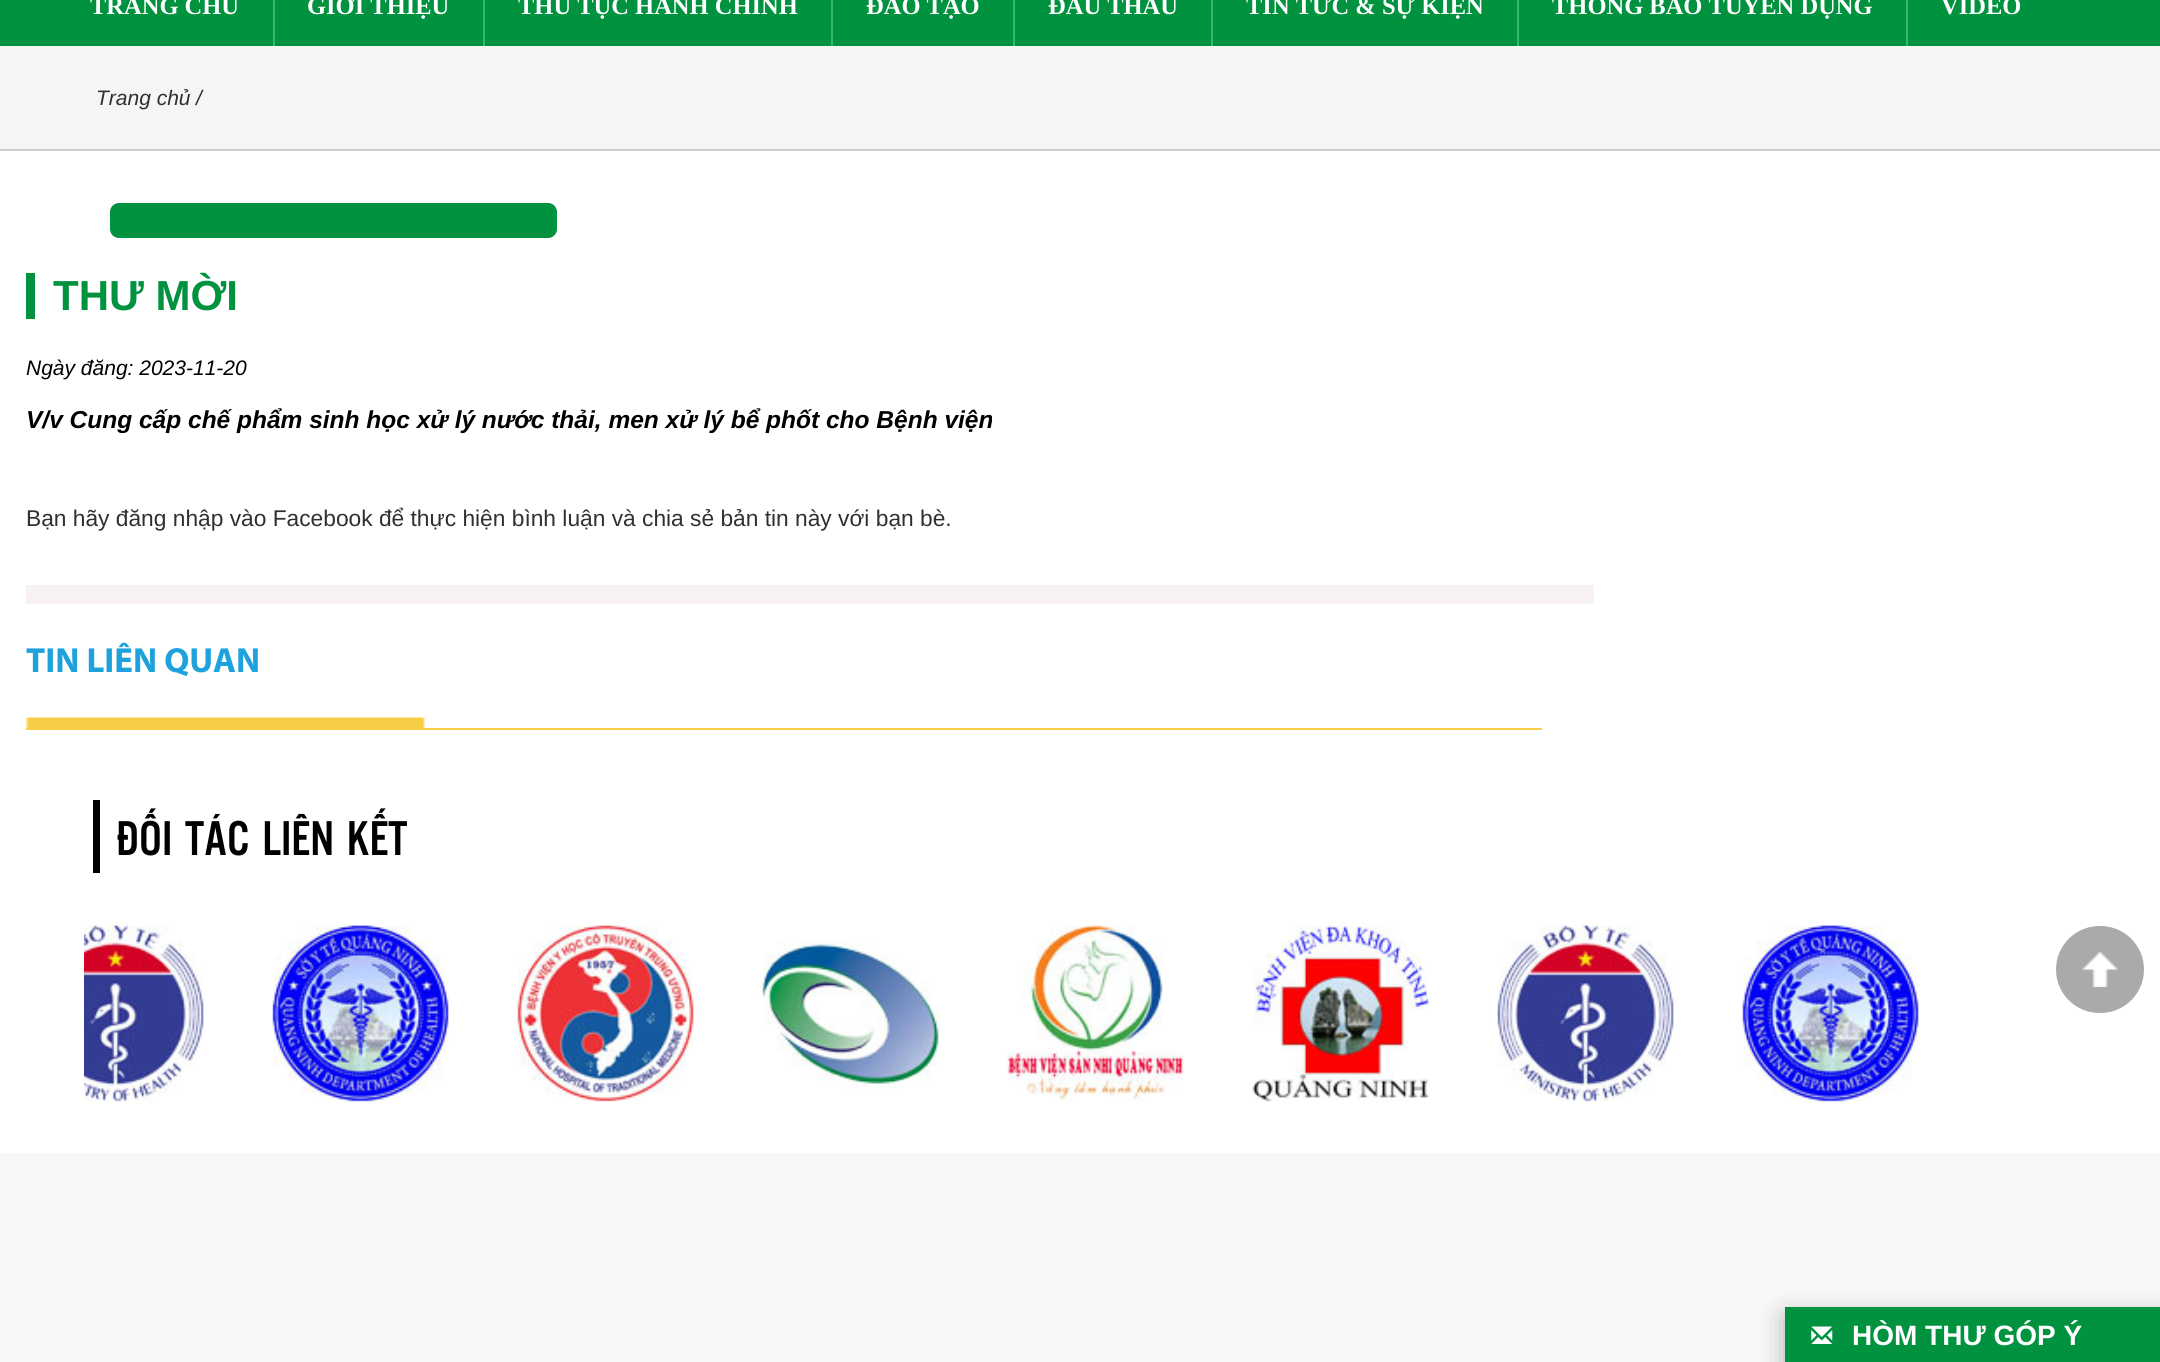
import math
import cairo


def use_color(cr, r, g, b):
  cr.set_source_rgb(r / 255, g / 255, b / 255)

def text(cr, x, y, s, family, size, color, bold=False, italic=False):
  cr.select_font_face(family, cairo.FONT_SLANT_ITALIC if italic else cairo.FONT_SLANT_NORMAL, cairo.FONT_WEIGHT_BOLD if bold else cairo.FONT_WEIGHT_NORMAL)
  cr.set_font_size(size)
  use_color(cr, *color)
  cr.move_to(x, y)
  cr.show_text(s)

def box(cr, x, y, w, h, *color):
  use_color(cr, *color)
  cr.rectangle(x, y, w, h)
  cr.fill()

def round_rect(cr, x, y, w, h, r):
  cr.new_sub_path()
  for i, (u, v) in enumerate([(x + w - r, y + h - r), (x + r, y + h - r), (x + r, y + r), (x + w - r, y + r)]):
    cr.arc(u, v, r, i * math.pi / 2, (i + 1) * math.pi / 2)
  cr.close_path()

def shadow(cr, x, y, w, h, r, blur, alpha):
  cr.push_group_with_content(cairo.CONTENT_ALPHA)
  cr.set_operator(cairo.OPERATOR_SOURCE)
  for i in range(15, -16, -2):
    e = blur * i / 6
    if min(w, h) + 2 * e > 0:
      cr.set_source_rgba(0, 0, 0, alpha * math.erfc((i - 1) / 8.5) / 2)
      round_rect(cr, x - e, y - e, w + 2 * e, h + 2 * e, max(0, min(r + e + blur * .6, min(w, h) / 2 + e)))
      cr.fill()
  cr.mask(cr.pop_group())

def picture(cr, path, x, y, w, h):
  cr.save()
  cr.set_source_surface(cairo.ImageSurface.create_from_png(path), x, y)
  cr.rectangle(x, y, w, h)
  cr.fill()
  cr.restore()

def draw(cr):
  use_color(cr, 255, 255, 255)
  cr.paint()
  box(cr, 0, 0, 2160, 46, 0, 146, 63)
  box(cr, 273, 0, 2, 46, 54, 183, 109)
  box(cr, 483, 0, 2, 46, 54, 183, 109)
  box(cr, 831, 0, 2, 46, 54, 183, 109)
  box(cr, 1013, 0, 2, 46, 54, 183, 109)
  box(cr, 1211, 0, 2, 46, 54, 183, 109)
  box(cr, 1517, 0, 2, 46, 54, 183, 109)
  box(cr, 1906, 0, 2, 46, 54, 183, 109)
  box(cr, 0, 46, 2160, 103, 245, 245, 245)
  box(cr, 0, 149, 2160, 2, 205, 205, 205)
  use_color(cr, 0, 146, 63)
  round_rect(cr, 110, 203, 447, 35, 9)
  cr.fill()
  box(cr, 26, 273, 9, 46, 0, 146, 63)
  box(cr, 26, 585, 1568, 19, 248, 241, 241)
  picture(cr, "img_01.png", 26, 717, 400, 11)
  box(cr, 26, 728, 1516, 2, 247, 205, 71)
  box(cr, 93, 800, 7, 73, 0, 0, 0)
  picture(cr, "img_02.png", 84, 925, 120, 177)
  picture(cr, "img_03.png", 272, 925, 177, 177)
  picture(cr, "img_04.png", 517, 925, 177, 177)
  picture(cr, "img_05.png", 762, 940, 177, 154)
  picture(cr, "img_06.png", 1007, 925, 177, 176)
  picture(cr, "img_07.png", 1252, 925, 177, 177)
  picture(cr, "img_08.png", 1497, 925, 177, 177)
  picture(cr, "img_09.png", 1742, 925, 177, 177)
  use_color(cr, 170, 170, 170)
  round_rect(cr, 2056, 926, 88, 87, 43.5)
  cr.fill()
  picture(cr, "img_10.png", 2082, 952, 36, 35)
  box(cr, 0, 1153, 2160, 209, 248, 248, 248)
  use_color(cr, 0, 0, 0)
  shadow(cr, 1785, 1316, 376, 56, 0, 13, 0.3)
  box(cr, 1785, 1307, 375, 55, 0, 146, 63)
  picture(cr, "img_11.png", 1811, 1326, 22, 18)
  text(cr, 90, 14, "TRANG CHỦ", "Liberation Serif", 24.5, (255, 255, 255), bold=True)
  text(cr, 307, 14, "GIỚI THIỆU", "Liberation Serif", 24.5, (255, 255, 255), bold=True)
  text(cr, 518, 14, "THỦ TỤC HÀNH CHÍNH", "Liberation Serif", 24.5, (255, 255, 255), bold=True)
  text(cr, 866, 14, "ĐÀO TẠO", "Liberation Serif", 24.5, (255, 255, 255), bold=True)
  text(cr, 1048, 14, "ĐẤU THẦU", "Liberation Serif", 24.5, (255, 255, 255), bold=True)
  text(cr, 1246, 14, "TIN TỨC & SỰ KIỆN", "Liberation Serif", 24.5, (255, 255, 255), bold=True)
  text(cr, 1552, 14, "THÔNG BÁO TUYỂN DỤNG", "Liberation Serif", 24.5, (255, 255, 255), bold=True)
  text(cr, 1941, 14, "VIDEO", "Liberation Serif", 24.5, (255, 255, 255), bold=True)
  text(cr, 96, 105, "Trang chủ", "Liberation Sans", 21, (48, 48, 48), italic=True)
  text(cr, 196, 105, "/", "Liberation Sans", 21, (48, 48, 48), italic=True)
  text(cr, 53, 310, "THƯ MỜI", "Liberation Sans", 42, (0, 146, 63), bold=True)
  text(cr, 26, 375, "Ngày đăng: 2023-11-20", "Liberation Sans", 21, (0, 0, 0), italic=True)
  text(cr, 26, 428, "V/v Cung cấp chế phẩm sinh học xử lý nước thải, men xử lý bể phốt cho Bệnh viện", "Liberation Sans", 24.5, (0, 0, 0), bold=True, italic=True)
  text(cr, 26, 526, "Bạn hãy đăng nhập vào Facebook để thực hiện bình luận và chia sẻ bản tin này với bạn bè.", "Liberation Sans", 22.75, (48, 48, 48))
  text(cr, 26, 672, "TIN LIÊN QUAN", "Myriad", 35, (30, 162, 222), bold=True)
  text(cr, 116, 855, "ĐỐI TÁC LIÊN KẾT", "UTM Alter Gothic", 50.75, (0, 0, 0))
  text(cr, 1852, 1345, "HÒM THƯ GÓP Ý", "Liberation Sans", 28, (255, 255, 255), bold=True)


surface = cairo.ImageSurface(cairo.FORMAT_RGB24, 2160, 1362)
cr = cairo.Context(surface)
options = cairo.FontOptions()
options.set_hint_metrics(cairo.HINT_METRICS_OFF)
options.set_hint_style(cairo.HINT_STYLE_NONE)
cr.set_font_options(options)
cr.set_miter_limit(4)
draw(cr)
surface.write_to_png("out.png")
